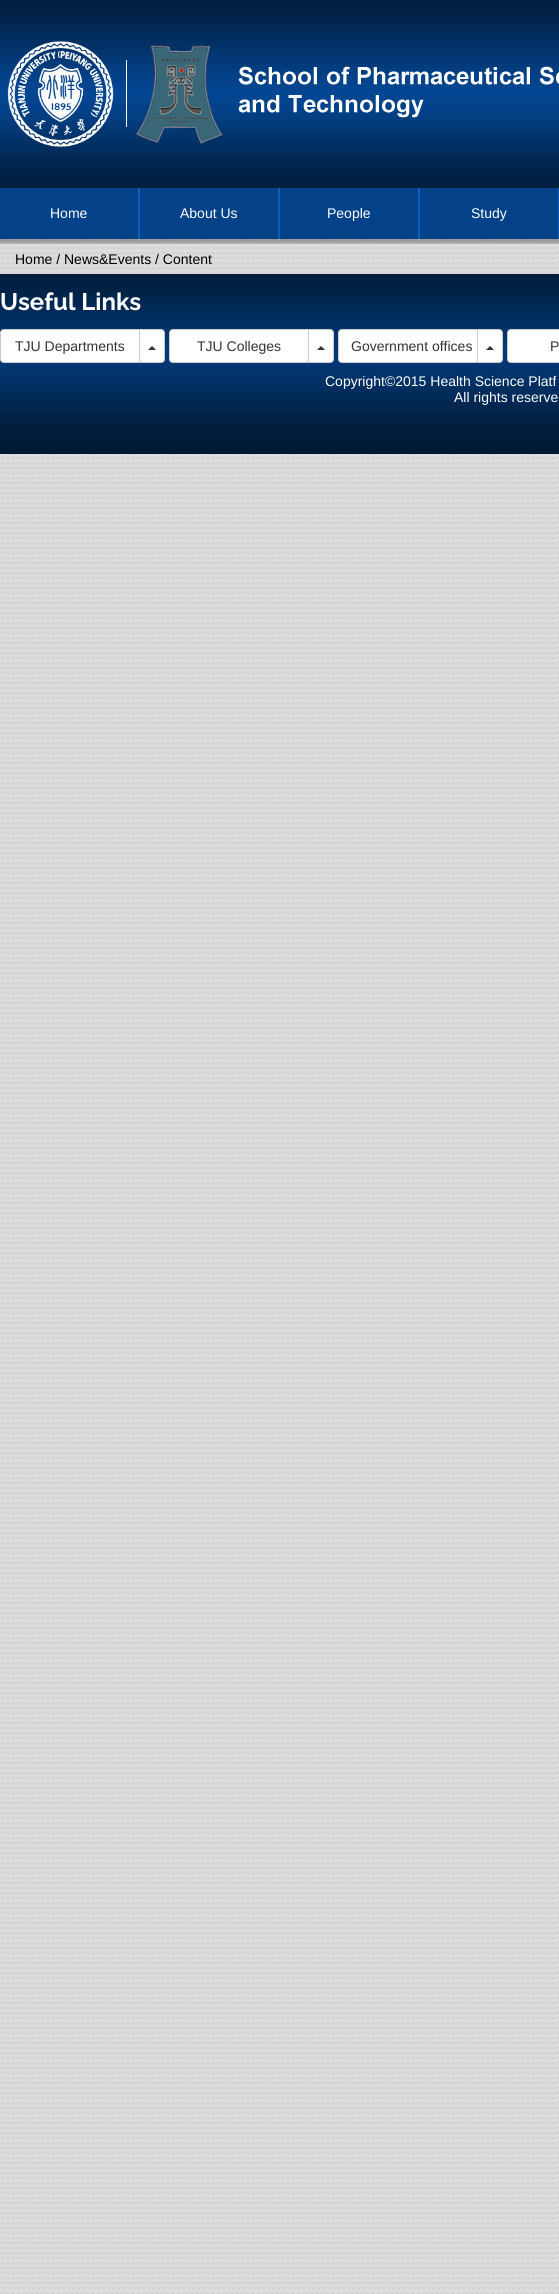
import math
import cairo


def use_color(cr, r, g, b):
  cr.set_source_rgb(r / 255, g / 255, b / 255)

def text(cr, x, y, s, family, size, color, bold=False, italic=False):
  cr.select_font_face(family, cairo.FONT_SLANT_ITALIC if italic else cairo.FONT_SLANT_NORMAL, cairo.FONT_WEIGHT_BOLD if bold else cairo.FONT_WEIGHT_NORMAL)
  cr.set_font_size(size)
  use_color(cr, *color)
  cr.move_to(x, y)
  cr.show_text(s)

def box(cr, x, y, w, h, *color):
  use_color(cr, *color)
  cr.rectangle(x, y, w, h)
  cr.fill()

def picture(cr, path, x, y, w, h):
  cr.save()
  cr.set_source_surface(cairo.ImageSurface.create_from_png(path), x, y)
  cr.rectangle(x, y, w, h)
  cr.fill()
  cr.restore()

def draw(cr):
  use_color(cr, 255, 255, 255)
  cr.paint()
  picture(cr, "img_01.png", 0, 244, 559, 2050)
  picture(cr, "img_02.png", 0, 0, 559, 188)
  picture(cr, "img_03.png", 7, 41, 107, 106)
  picture(cr, "img_04.png", 126, 45, 433, 99)
  picture(cr, "img_05.png", 0, 188, 559, 56)
  box(cr, 138, 188, 2, 51, 4, 97, 194)
  box(cr, 278, 188, 2, 51, 4, 97, 194)
  box(cr, 418, 188, 2, 51, 4, 97, 194)
  box(cr, 558, 188, 1, 51, 4, 97, 194)
  picture(cr, "img_06.png", 0, 274, 559, 180)
  use_color(cr, 255, 255, 255)
  cr.new_path()
  cr.move_to(4, 329.5)
  cr.line_to(139.5, 329.5)
  cr.line_to(139.5, 362.5)
  cr.line_to(4, 362.5)
  cr.curve_to(2, 362.5, 0.5, 361, 0.5, 359)
  cr.line_to(0.5, 333)
  cr.curve_to(0.5, 331, 2, 329.5, 4, 329.5)
  cr.close_path()
  cr.fill_preserve()
  use_color(cr, 204, 204, 204)
  cr.set_line_width(1)
  cr.stroke()
  use_color(cr, 255, 255, 255)
  cr.new_path()
  cr.move_to(139.5, 329.5)
  cr.line_to(161, 329.5)
  cr.curve_to(163, 329.5, 164.5, 331, 164.5, 333)
  cr.line_to(164.5, 359)
  cr.curve_to(164.5, 361, 163, 362.5, 161, 362.5)
  cr.line_to(139.5, 362.5)
  cr.close_path()
  cr.fill_preserve()
  use_color(cr, 204, 204, 204)
  cr.stroke()
  use_color(cr, 51, 51, 51)
  cr.new_path()
  cr.move_to(156, 350)
  cr.line_to(148, 350)
  cr.line_to(152, 346)
  cr.close_path()
  cr.fill()
  use_color(cr, 255, 255, 255)
  cr.new_path()
  cr.move_to(173, 329.5)
  cr.line_to(308.5, 329.5)
  cr.line_to(308.5, 362.5)
  cr.line_to(173, 362.5)
  cr.curve_to(171, 362.5, 169.5, 361, 169.5, 359)
  cr.line_to(169.5, 333)
  cr.curve_to(169.5, 331, 171, 329.5, 173, 329.5)
  cr.close_path()
  cr.fill_preserve()
  use_color(cr, 204, 204, 204)
  cr.stroke()
  use_color(cr, 255, 255, 255)
  cr.new_path()
  cr.move_to(308.5, 329.5)
  cr.line_to(330, 329.5)
  cr.curve_to(332, 329.5, 333.5, 331, 333.5, 333)
  cr.line_to(333.5, 359)
  cr.curve_to(333.5, 361, 332, 362.5, 330, 362.5)
  cr.line_to(308.5, 362.5)
  cr.close_path()
  cr.fill_preserve()
  use_color(cr, 204, 204, 204)
  cr.stroke()
  use_color(cr, 51, 51, 51)
  cr.new_path()
  cr.move_to(325, 350)
  cr.line_to(317, 350)
  cr.line_to(321, 346)
  cr.close_path()
  cr.fill()
  use_color(cr, 255, 255, 255)
  cr.new_path()
  cr.move_to(342, 329.5)
  cr.line_to(477.5, 329.5)
  cr.line_to(477.5, 362.5)
  cr.line_to(342, 362.5)
  cr.curve_to(340, 362.5, 338.5, 361, 338.5, 359)
  cr.line_to(338.5, 333)
  cr.curve_to(338.5, 331, 340, 329.5, 342, 329.5)
  cr.close_path()
  cr.fill_preserve()
  use_color(cr, 204, 204, 204)
  cr.stroke()
  use_color(cr, 255, 255, 255)
  cr.new_path()
  cr.move_to(477.5, 329.5)
  cr.line_to(499, 329.5)
  cr.curve_to(501, 329.5, 502.5, 331, 502.5, 333)
  cr.line_to(502.5, 359)
  cr.curve_to(502.5, 361, 501, 362.5, 499, 362.5)
  cr.line_to(477.5, 362.5)
  cr.close_path()
  cr.fill_preserve()
  use_color(cr, 204, 204, 204)
  cr.stroke()
  use_color(cr, 51, 51, 51)
  cr.new_path()
  cr.move_to(494, 350)
  cr.line_to(486, 350)
  cr.line_to(490, 346)
  cr.close_path()
  cr.fill()
  use_color(cr, 255, 255, 255)
  cr.new_path()
  cr.move_to(511, 329.5)
  cr.line_to(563.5, 329.5)
  cr.line_to(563.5, 362.5)
  cr.line_to(511, 362.5)
  cr.curve_to(509, 362.5, 507.5, 361, 507.5, 359)
  cr.line_to(507.5, 333)
  cr.curve_to(507.5, 331, 509, 329.5, 511, 329.5)
  cr.close_path()
  cr.fill_preserve()
  use_color(cr, 204, 204, 204)
  cr.stroke()
  text(cr, 50, 218, "Home", "Liberation Sans", 14, (255, 255, 255))
  text(cr, 180, 218, "About Us", "Liberation Sans", 14, (255, 255, 255))
  text(cr, 327, 218, "People", "Liberation Sans", 14, (255, 255, 255))
  text(cr, 471, 218, "Study", "Liberation Sans", 14, (255, 255, 255))
  text(cr, 15, 264, "Home / News&Events / Content", "Liberation Sans", 14, (0, 0, 0))
  text(cr, 0, 310, "Useful Links", "Raleway", 24, (255, 255, 255), bold=True)
  text(cr, 15, 351, "TJU Departments", "Liberation Sans", 14, (51, 51, 51))
  text(cr, 197, 351, "TJU Colleges", "Liberation Sans", 14, (51, 51, 51))
  text(cr, 351, 351, "Government offices", "Liberation Sans", 14, (51, 51, 51))
  text(cr, 550, 351, "P", "Liberation Sans", 14, (51, 51, 51))
  text(cr, 325, 386, "Copyright©2015 Health Science Platf", "Liberation Sans", 14, (255, 255, 255))
  text(cr, 454, 402, "All rights reserve", "Liberation Sans", 14, (255, 255, 255))


surface = cairo.ImageSurface(cairo.FORMAT_RGB24, 559, 2294)
cr = cairo.Context(surface)
options = cairo.FontOptions()
options.set_hint_metrics(cairo.HINT_METRICS_OFF)
options.set_hint_style(cairo.HINT_STYLE_NONE)
cr.set_font_options(options)
cr.set_miter_limit(4)
draw(cr)
surface.write_to_png("out.png")
